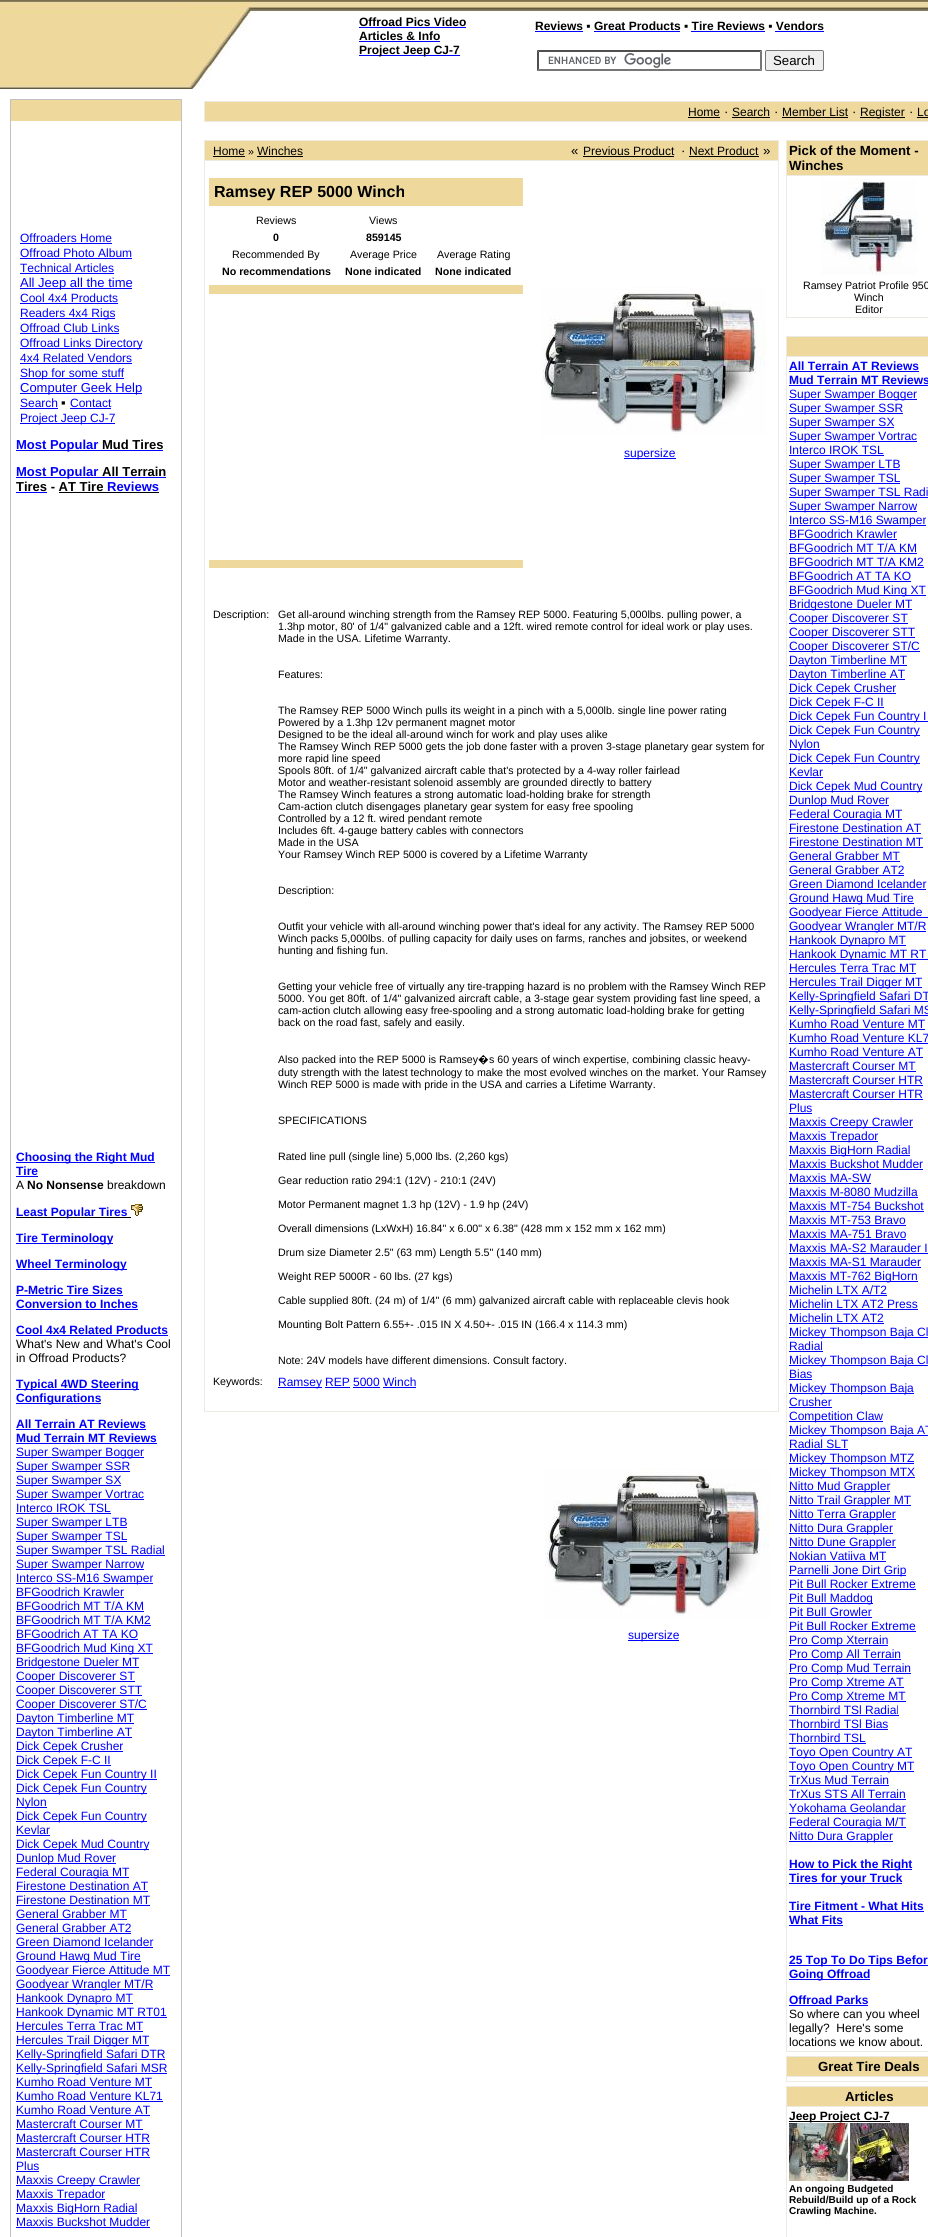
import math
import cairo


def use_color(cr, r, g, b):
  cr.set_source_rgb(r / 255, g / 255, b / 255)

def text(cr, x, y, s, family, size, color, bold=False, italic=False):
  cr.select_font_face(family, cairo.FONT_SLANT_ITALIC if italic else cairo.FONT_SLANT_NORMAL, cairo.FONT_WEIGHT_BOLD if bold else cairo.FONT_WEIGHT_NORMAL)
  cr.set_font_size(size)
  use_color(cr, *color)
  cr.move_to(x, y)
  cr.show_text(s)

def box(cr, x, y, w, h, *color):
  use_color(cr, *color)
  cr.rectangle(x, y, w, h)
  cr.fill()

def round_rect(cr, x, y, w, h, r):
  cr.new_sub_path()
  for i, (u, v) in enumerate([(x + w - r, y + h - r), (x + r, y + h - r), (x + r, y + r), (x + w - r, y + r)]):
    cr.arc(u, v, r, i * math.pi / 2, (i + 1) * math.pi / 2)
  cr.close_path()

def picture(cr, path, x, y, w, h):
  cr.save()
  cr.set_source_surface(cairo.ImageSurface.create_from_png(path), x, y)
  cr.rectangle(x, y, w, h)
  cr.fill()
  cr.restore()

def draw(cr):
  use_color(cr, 255, 255, 255)
  cr.paint()
  picture(cr, "img_01.png", 0, 0, 189, 89)
  picture(cr, "img_02.png", 189, 0, 62, 89)
  picture(cr, "img_03.png", 251, 0, 677, 13)
  box(cr, 359, 27, 107, 1, 0, 0, 255)
  box(cr, 359, 41, 81, 1, 0, 0, 255)
  box(cr, 359, 55, 101, 1, 0, 0, 255)
  box(cr, 535, 31, 48, 1, 0, 0, 255)
  box(cr, 594, 31, 86, 1, 0, 0, 255)
  box(cr, 691, 31, 74, 1, 0, 0, 255)
  box(cr, 775, 31, 49, 1, 0, 0, 255)
  picture(cr, "img_04.png", 548, 53, 123, 15)
  use_color(cr, 79, 79, 79)
  cr.new_path()
  cr.move_to(537, 50)
  cr.line_to(762, 50)
  cr.line_to(760, 52)
  cr.line_to(539, 52)
  cr.close_path()
  cr.fill()
  use_color(cr, 118, 118, 118)
  cr.new_path()
  cr.move_to(762, 50)
  cr.line_to(762, 71)
  cr.line_to(760, 69)
  cr.line_to(760, 52)
  cr.close_path()
  cr.fill()
  cr.new_path()
  cr.move_to(762, 71)
  cr.line_to(537, 71)
  cr.line_to(539, 69)
  cr.line_to(760, 69)
  cr.close_path()
  cr.fill()
  use_color(cr, 79, 79, 79)
  cr.new_path()
  cr.move_to(537, 71)
  cr.line_to(537, 50)
  cr.line_to(539, 52)
  cr.line_to(539, 69)
  cr.close_path()
  cr.fill()
  use_color(cr, 239, 239, 239)
  round_rect(cr, 765.5, 50.5, 58, 20, 1.5)
  cr.fill_preserve()
  use_color(cr, 118, 118, 118)
  cr.set_line_width(1)
  cr.stroke()
  cr.rectangle(10.5, 99.5, 171, 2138)
  use_color(cr, 192, 192, 192)
  cr.stroke()
  box(cr, 11, 100, 170, 21, 238, 216, 156)
  box(cr, 20, 243, 92, 1, 0, 0, 255)
  box(cr, 20, 258, 112, 1, 0, 0, 255)
  box(cr, 20, 273, 94, 1, 0, 0, 255)
  box(cr, 20, 288, 112, 1, 0, 0, 255)
  box(cr, 20, 303, 98, 1, 0, 0, 255)
  box(cr, 20, 318, 95, 1, 0, 0, 255)
  box(cr, 20, 333, 99, 1, 0, 0, 255)
  box(cr, 20, 348, 122, 1, 0, 0, 255)
  box(cr, 20, 363, 112, 1, 0, 0, 255)
  box(cr, 20, 378, 104, 1, 0, 0, 255)
  box(cr, 20, 393, 122, 1, 0, 0, 255)
  box(cr, 20, 408, 38, 1, 0, 0, 255)
  box(cr, 70, 408, 41, 1, 0, 0, 255)
  box(cr, 20, 423, 95, 1, 0, 0, 255)
  box(cr, 16, 450, 82, 1, 0, 0, 255)
  box(cr, 98, 450, 65, 1, 0, 0, 255)
  box(cr, 16, 477, 82, 1, 0, 0, 255)
  box(cr, 98, 477, 68, 1, 0, 0, 255)
  box(cr, 16, 492, 31, 1, 0, 0, 255)
  box(cr, 59, 492, 100, 1, 0, 0, 0)
  box(cr, 16, 1162, 139, 1, 0, 0, 255)
  box(cr, 16, 1176, 22, 1, 0, 0, 255)
  box(cr, 16, 1217, 115, 1, 0, 0, 0)
  picture(cr, "img_05.png", 131, 1204, 12, 12)
  box(cr, 16, 1243, 97, 1, 0, 0, 255)
  box(cr, 16, 1269, 111, 1, 0, 0, 255)
  box(cr, 16, 1295, 107, 1, 0, 0, 255)
  box(cr, 16, 1309, 122, 1, 0, 0, 255)
  box(cr, 16, 1335, 152, 1, 0, 0, 255)
  box(cr, 16, 1389, 123, 1, 0, 0, 255)
  box(cr, 16, 1403, 85, 1, 0, 0, 255)
  box(cr, 16, 1429, 130, 1, 0, 0, 255)
  box(cr, 16, 1443, 141, 1, 0, 0, 255)
  box(cr, 16, 1457, 128, 1, 0, 0, 255)
  box(cr, 16, 1471, 114, 1, 0, 0, 255)
  box(cr, 16, 1485, 105, 1, 0, 0, 255)
  box(cr, 16, 1499, 128, 1, 0, 0, 255)
  box(cr, 16, 1513, 95, 1, 0, 0, 255)
  box(cr, 16, 1527, 111, 1, 0, 0, 255)
  box(cr, 16, 1541, 111, 1, 0, 0, 255)
  box(cr, 16, 1555, 149, 1, 0, 0, 255)
  box(cr, 16, 1569, 128, 1, 0, 0, 255)
  box(cr, 16, 1583, 137, 1, 0, 0, 255)
  box(cr, 16, 1597, 108, 1, 0, 0, 255)
  box(cr, 16, 1611, 128, 1, 0, 0, 255)
  box(cr, 16, 1625, 135, 1, 0, 0, 255)
  box(cr, 16, 1639, 122, 1, 0, 0, 255)
  box(cr, 16, 1653, 137, 1, 0, 0, 255)
  box(cr, 16, 1667, 123, 1, 0, 0, 255)
  box(cr, 16, 1681, 119, 1, 0, 0, 255)
  box(cr, 16, 1695, 126, 1, 0, 0, 255)
  box(cr, 16, 1709, 131, 1, 0, 0, 255)
  box(cr, 16, 1723, 118, 1, 0, 0, 255)
  box(cr, 16, 1737, 116, 1, 0, 0, 255)
  box(cr, 16, 1751, 107, 1, 0, 0, 255)
  box(cr, 16, 1765, 95, 1, 0, 0, 255)
  box(cr, 16, 1779, 141, 1, 0, 0, 255)
  box(cr, 16, 1793, 131, 1, 0, 0, 255)
  box(cr, 16, 1807, 31, 1, 0, 0, 255)
  box(cr, 16, 1821, 131, 1, 0, 0, 255)
  box(cr, 16, 1835, 34, 1, 0, 0, 255)
  box(cr, 16, 1849, 133, 1, 0, 0, 255)
  box(cr, 16, 1863, 100, 1, 0, 0, 255)
  box(cr, 16, 1877, 113, 1, 0, 0, 255)
  box(cr, 16, 1891, 132, 1, 0, 0, 255)
  box(cr, 16, 1905, 134, 1, 0, 0, 255)
  box(cr, 16, 1919, 111, 1, 0, 0, 255)
  box(cr, 16, 1933, 115, 1, 0, 0, 255)
  box(cr, 16, 1947, 137, 1, 0, 0, 255)
  box(cr, 16, 1961, 125, 1, 0, 0, 255)
  box(cr, 16, 1975, 154, 1, 0, 0, 255)
  box(cr, 16, 1989, 137, 1, 0, 0, 255)
  box(cr, 16, 2003, 117, 1, 0, 0, 255)
  box(cr, 16, 2017, 151, 1, 0, 0, 255)
  box(cr, 16, 2031, 127, 1, 0, 0, 255)
  box(cr, 16, 2045, 133, 1, 0, 0, 255)
  box(cr, 16, 2059, 149, 1, 0, 0, 255)
  box(cr, 16, 2073, 151, 1, 0, 0, 255)
  box(cr, 16, 2087, 136, 1, 0, 0, 255)
  box(cr, 16, 2101, 147, 1, 0, 0, 255)
  box(cr, 16, 2115, 134, 1, 0, 0, 255)
  box(cr, 16, 2129, 127, 1, 0, 0, 255)
  box(cr, 16, 2143, 134, 1, 0, 0, 255)
  box(cr, 16, 2157, 134, 1, 0, 0, 255)
  box(cr, 16, 2171, 23, 1, 0, 0, 255)
  box(cr, 16, 2185, 124, 1, 0, 0, 255)
  box(cr, 16, 2199, 89, 1, 0, 0, 255)
  box(cr, 16, 2213, 121, 1, 0, 0, 255)
  box(cr, 16, 2227, 134, 1, 0, 0, 255)
  box(cr, 204, 101, 724, 21, 235, 234, 227)
  box(cr, 205, 102, 723, 19, 238, 216, 156)
  box(cr, 688, 117, 32, 1, 0, 0, 0)
  box(cr, 732, 117, 38, 1, 0, 0, 0)
  box(cr, 782, 117, 66, 1, 0, 0, 0)
  box(cr, 860, 117, 45, 1, 0, 0, 0)
  box(cr, 917, 117, 11, 1, 0, 0, 0)
  box(cr, 204, 140, 575, 1272, 235, 234, 227)
  box(cr, 205, 141, 573, 19, 238, 216, 156)
  box(cr, 213, 156, 32, 1, 0, 0, 0)
  box(cr, 257, 156, 46, 1, 0, 0, 0)
  box(cr, 583, 156, 91, 1, 0, 0, 0)
  box(cr, 689, 156, 70, 1, 0, 0, 0)
  box(cr, 205, 161, 573, 1250, 255, 255, 255)
  box(cr, 209, 178, 314, 28, 238, 216, 156)
  box(cr, 209, 285, 314, 9, 238, 216, 156)
  box(cr, 209, 560, 314, 8, 238, 216, 156)
  picture(cr, "img_06.png", 541, 287, 225, 150)
  box(cr, 624, 458, 52, 1, 0, 0, 255)
  box(cr, 278, 1387, 44, 1, 0, 0, 255)
  box(cr, 325, 1387, 25, 1, 0, 0, 255)
  box(cr, 353, 1387, 27, 1, 0, 0, 255)
  box(cr, 383, 1387, 33, 1, 0, 0, 255)
  picture(cr, "img_06.png", 545, 1469, 225, 150)
  box(cr, 628, 1640, 51, 1, 0, 0, 255)
  box(cr, 786, 140, 142, 178, 235, 234, 227)
  box(cr, 787, 141, 141, 34, 238, 216, 156)
  box(cr, 787, 176, 141, 141, 255, 255, 255)
  picture(cr, "img_07.png", 821, 179, 96, 96)
  box(cr, 786, 336, 142, 1716, 235, 234, 227)
  box(cr, 787, 337, 141, 19, 238, 216, 156)
  box(cr, 787, 357, 141, 1694, 255, 255, 255)
  box(cr, 789, 371, 130, 1, 0, 0, 255)
  box(cr, 789, 385, 139, 1, 0, 0, 255)
  box(cr, 789, 399, 128, 1, 0, 0, 255)
  box(cr, 789, 413, 114, 1, 0, 0, 255)
  box(cr, 789, 427, 105, 1, 0, 0, 255)
  box(cr, 789, 441, 128, 1, 0, 0, 255)
  box(cr, 789, 455, 95, 1, 0, 0, 255)
  box(cr, 789, 469, 111, 1, 0, 0, 255)
  box(cr, 789, 483, 111, 1, 0, 0, 255)
  box(cr, 789, 497, 139, 1, 0, 0, 255)
  box(cr, 789, 511, 128, 1, 0, 0, 255)
  box(cr, 789, 525, 137, 1, 0, 0, 255)
  box(cr, 789, 539, 108, 1, 0, 0, 255)
  box(cr, 789, 553, 128, 1, 0, 0, 255)
  box(cr, 789, 567, 135, 1, 0, 0, 255)
  box(cr, 789, 581, 122, 1, 0, 0, 255)
  box(cr, 789, 595, 137, 1, 0, 0, 255)
  box(cr, 789, 609, 123, 1, 0, 0, 255)
  box(cr, 789, 623, 119, 1, 0, 0, 255)
  box(cr, 789, 637, 126, 1, 0, 0, 255)
  box(cr, 789, 651, 131, 1, 0, 0, 255)
  box(cr, 789, 665, 118, 1, 0, 0, 255)
  box(cr, 789, 679, 116, 1, 0, 0, 255)
  box(cr, 789, 693, 107, 1, 0, 0, 255)
  box(cr, 789, 707, 95, 1, 0, 0, 255)
  box(cr, 789, 721, 139, 1, 0, 0, 255)
  box(cr, 789, 735, 131, 1, 0, 0, 255)
  box(cr, 789, 749, 31, 1, 0, 0, 255)
  box(cr, 789, 763, 131, 1, 0, 0, 255)
  box(cr, 789, 777, 34, 1, 0, 0, 255)
  box(cr, 789, 791, 133, 1, 0, 0, 255)
  box(cr, 789, 805, 100, 1, 0, 0, 255)
  box(cr, 789, 819, 113, 1, 0, 0, 255)
  box(cr, 789, 833, 132, 1, 0, 0, 255)
  box(cr, 789, 847, 134, 1, 0, 0, 255)
  box(cr, 789, 861, 111, 1, 0, 0, 255)
  box(cr, 789, 875, 115, 1, 0, 0, 255)
  box(cr, 789, 889, 137, 1, 0, 0, 255)
  box(cr, 789, 903, 125, 1, 0, 0, 255)
  box(cr, 789, 917, 139, 1, 0, 0, 255)
  box(cr, 789, 931, 137, 1, 0, 0, 255)
  box(cr, 789, 945, 117, 1, 0, 0, 255)
  box(cr, 789, 959, 139, 1, 0, 0, 255)
  box(cr, 789, 973, 127, 1, 0, 0, 255)
  box(cr, 789, 987, 133, 1, 0, 0, 255)
  box(cr, 789, 1001, 139, 1, 0, 0, 255)
  box(cr, 789, 1015, 139, 1, 0, 0, 255)
  box(cr, 789, 1029, 136, 1, 0, 0, 255)
  box(cr, 789, 1043, 139, 1, 0, 0, 255)
  box(cr, 789, 1057, 134, 1, 0, 0, 255)
  box(cr, 789, 1071, 127, 1, 0, 0, 255)
  box(cr, 789, 1085, 134, 1, 0, 0, 255)
  box(cr, 789, 1099, 134, 1, 0, 0, 255)
  box(cr, 789, 1113, 23, 1, 0, 0, 255)
  box(cr, 789, 1127, 124, 1, 0, 0, 255)
  box(cr, 789, 1141, 89, 1, 0, 0, 255)
  box(cr, 789, 1155, 121, 1, 0, 0, 255)
  box(cr, 789, 1169, 134, 1, 0, 0, 255)
  box(cr, 789, 1183, 82, 1, 0, 0, 255)
  box(cr, 789, 1197, 129, 1, 0, 0, 255)
  box(cr, 789, 1211, 135, 1, 0, 0, 255)
  box(cr, 789, 1225, 117, 1, 0, 0, 255)
  box(cr, 789, 1239, 117, 1, 0, 0, 255)
  box(cr, 789, 1253, 139, 1, 0, 0, 255)
  box(cr, 789, 1267, 132, 1, 0, 0, 255)
  box(cr, 789, 1281, 129, 1, 0, 0, 255)
  box(cr, 789, 1295, 98, 1, 0, 0, 255)
  box(cr, 789, 1309, 129, 1, 0, 0, 255)
  box(cr, 789, 1323, 95, 1, 0, 0, 255)
  box(cr, 789, 1337, 139, 1, 0, 0, 255)
  box(cr, 789, 1351, 34, 1, 0, 0, 255)
  box(cr, 789, 1365, 139, 1, 0, 0, 255)
  box(cr, 789, 1379, 23, 1, 0, 0, 255)
  box(cr, 789, 1393, 125, 1, 0, 0, 255)
  box(cr, 789, 1407, 43, 1, 0, 0, 255)
  box(cr, 789, 1421, 94, 1, 0, 0, 255)
  box(cr, 789, 1435, 139, 1, 0, 0, 255)
  box(cr, 789, 1449, 59, 1, 0, 0, 255)
  box(cr, 789, 1463, 125, 1, 0, 0, 255)
  box(cr, 789, 1477, 126, 1, 0, 0, 255)
  box(cr, 789, 1491, 101, 1, 0, 0, 255)
  box(cr, 789, 1505, 122, 1, 0, 0, 255)
  box(cr, 789, 1519, 107, 1, 0, 0, 255)
  box(cr, 789, 1533, 104, 1, 0, 0, 255)
  box(cr, 789, 1547, 107, 1, 0, 0, 255)
  box(cr, 789, 1561, 97, 1, 0, 0, 255)
  box(cr, 789, 1575, 117, 1, 0, 0, 255)
  box(cr, 789, 1589, 127, 1, 0, 0, 255)
  box(cr, 789, 1603, 84, 1, 0, 0, 255)
  box(cr, 789, 1617, 83, 1, 0, 0, 255)
  box(cr, 789, 1631, 127, 1, 0, 0, 255)
  box(cr, 789, 1645, 99, 1, 0, 0, 255)
  box(cr, 789, 1659, 112, 1, 0, 0, 255)
  box(cr, 789, 1673, 122, 1, 0, 0, 255)
  box(cr, 789, 1687, 115, 1, 0, 0, 255)
  box(cr, 789, 1701, 117, 1, 0, 0, 255)
  box(cr, 789, 1715, 110, 1, 0, 0, 255)
  box(cr, 789, 1729, 99, 1, 0, 0, 255)
  box(cr, 789, 1743, 77, 1, 0, 0, 255)
  box(cr, 789, 1757, 123, 1, 0, 0, 255)
  box(cr, 789, 1771, 125, 1, 0, 0, 255)
  box(cr, 789, 1785, 100, 1, 0, 0, 255)
  box(cr, 789, 1799, 117, 1, 0, 0, 255)
  box(cr, 789, 1813, 117, 1, 0, 0, 255)
  box(cr, 789, 1827, 117, 1, 0, 0, 255)
  box(cr, 789, 1841, 104, 1, 0, 0, 255)
  box(cr, 789, 1869, 123, 1, 0, 0, 255)
  box(cr, 789, 1883, 113, 1, 0, 0, 255)
  box(cr, 789, 1911, 135, 1, 0, 0, 255)
  box(cr, 789, 1925, 54, 1, 0, 0, 255)
  box(cr, 789, 1965, 139, 1, 0, 0, 255)
  box(cr, 789, 1979, 81, 1, 0, 0, 255)
  box(cr, 789, 2005, 79, 1, 0, 0, 255)
  box(cr, 786, 2056, 142, 26, 235, 234, 227)
  box(cr, 787, 2057, 141, 19, 238, 216, 156)
  box(cr, 787, 2077, 141, 4, 255, 255, 255)
  box(cr, 786, 2086, 142, 151, 235, 234, 227)
  box(cr, 787, 2087, 141, 19, 238, 216, 156)
  box(cr, 787, 2107, 141, 130, 255, 255, 255)
  box(cr, 789, 2121, 101, 1, 0, 0, 0)
  picture(cr, "img_08.png", 789, 2123, 120, 58)
  text(cr, 359, 26, "Offroad Pics Video", "Liberation Sans", 12, (0, 0, 0), bold=True)
  text(cr, 359, 40, "Articles & Info", "Liberation Sans", 12, (0, 0, 0), bold=True)
  text(cr, 359, 54, "Project Jeep CJ-7", "Liberation Sans", 12, (0, 0, 0), bold=True)
  text(cr, 535, 30, "Reviews ▪ Great Products ▪ Tire Reviews ▪ Vendors", "Liberation Sans", 12, (0, 0, 0), bold=True)
  text(cr, 773, 65, "Search", "Liberation Sans", 13.25, (0, 0, 0))
  text(cr, 20, 242, "Offroaders Home", "Liberation Sans", 12, (0, 0, 255))
  text(cr, 20, 257, "Offroad Photo Album", "Liberation Sans", 12, (0, 0, 255))
  text(cr, 20, 272, "Technical Articles", "Liberation Sans", 12, (0, 0, 255))
  text(cr, 20, 287, "All Jeep all the time", "Liberation Sans", 13, (0, 0, 255))
  text(cr, 20, 302, "Cool 4x4 Products", "Liberation Sans", 12, (0, 0, 255))
  text(cr, 20, 317, "Readers 4x4 Rigs", "Liberation Sans", 12, (0, 0, 255))
  text(cr, 20, 332, "Offroad Club Links", "Liberation Sans", 12, (0, 0, 255))
  text(cr, 20, 347, "Offroad Links Directory", "Liberation Sans", 12, (0, 0, 255))
  text(cr, 20, 362, "4x4 Related Vendors", "Liberation Sans", 12, (0, 0, 255))
  text(cr, 20, 377, "Shop for some stuff", "Liberation Sans", 12, (0, 0, 255))
  text(cr, 20, 392, "Computer Geek Help", "Liberation Sans", 13, (0, 0, 255))
  text(cr, 20, 407, "Search", "Liberation Sans", 12, (0, 0, 255))
  text(cr, 61, 407, "▪", "Liberation Sans", 13, (0, 0, 0))
  text(cr, 70, 407, "Contact", "Liberation Sans", 12, (0, 0, 255))
  text(cr, 20, 422, "Project Jeep CJ-7", "Liberation Sans", 12, (0, 0, 255))
  text(cr, 16, 449, "Most Popular", "Liberation Sans", 13, (0, 0, 255), bold=True)
  text(cr, 102, 449, "Mud Tires", "Liberation Sans", 13, (0, 0, 0), bold=True)
  text(cr, 16, 476, "Most Popular", "Liberation Sans", 13, (0, 0, 255), bold=True)
  text(cr, 102, 476, "All Terrain", "Liberation Sans", 13, (0, 0, 0), bold=True)
  text(cr, 16, 491, "Tires - AT Tire", "Liberation Sans", 13, (0, 0, 0), bold=True)
  text(cr, 107, 491, "Reviews", "Liberation Sans", 13, (0, 0, 255), bold=True)
  text(cr, 16, 1161, "Choosing the Right Mud", "Liberation Sans", 12, (0, 0, 255), bold=True)
  text(cr, 16, 1175, "Tire", "Liberation Sans", 12, (0, 0, 255), bold=True)
  text(cr, 16, 1189, "A", "Liberation Sans", 12, (0, 0, 0))
  text(cr, 27, 1189, "No Nonsense", "Liberation Sans", 12, (0, 0, 0), bold=True)
  text(cr, 107, 1189, "breakdown", "Liberation Sans", 12, (0, 0, 0))
  text(cr, 16, 1216, "Least Popular Tires", "Liberation Sans", 12, (0, 0, 255), bold=True)
  text(cr, 16, 1242, "Tire Terminology", "Liberation Sans", 12, (0, 0, 255), bold=True)
  text(cr, 16, 1268, "Wheel Terminology", "Liberation Sans", 12, (0, 0, 255), bold=True)
  text(cr, 16, 1294, "P-Metric Tire Sizes", "Liberation Sans", 12, (0, 0, 255), bold=True)
  text(cr, 16, 1308, "Conversion to Inches", "Liberation Sans", 12, (0, 0, 255), bold=True)
  text(cr, 16, 1334, "Cool 4x4 Related Products", "Liberation Sans", 12, (0, 0, 255), bold=True)
  text(cr, 16, 1348, "What's New and What's Cool", "Liberation Sans", 12, (0, 0, 0))
  text(cr, 16, 1362, "in Offroad Products?", "Liberation Sans", 12, (0, 0, 0))
  text(cr, 16, 1388, "Typical 4WD Steering", "Liberation Sans", 12, (0, 0, 255), bold=True)
  text(cr, 16, 1402, "Configurations", "Liberation Sans", 12, (0, 0, 255), bold=True)
  text(cr, 16, 1428, "All Terrain AT Reviews", "Liberation Sans", 12, (0, 0, 255), bold=True)
  text(cr, 16, 1442, "Mud Terrain MT Reviews", "Liberation Sans", 12, (0, 0, 255), bold=True)
  text(cr, 16, 1456, "Super Swamper Bogger", "Liberation Sans", 12, (0, 0, 255))
  text(cr, 16, 1470, "Super Swamper SSR", "Liberation Sans", 12, (0, 0, 255))
  text(cr, 16, 1484, "Super Swamper SX", "Liberation Sans", 12, (0, 0, 255))
  text(cr, 16, 1498, "Super Swamper Vortrac", "Liberation Sans", 12, (0, 0, 255))
  text(cr, 16, 1512, "Interco IROK TSL", "Liberation Sans", 12, (0, 0, 255))
  text(cr, 16, 1526, "Super Swamper LTB", "Liberation Sans", 12, (0, 0, 255))
  text(cr, 16, 1540, "Super Swamper TSL", "Liberation Sans", 12, (0, 0, 255))
  text(cr, 16, 1554, "Super Swamper TSL Radial", "Liberation Sans", 12, (0, 0, 255))
  text(cr, 16, 1568, "Super Swamper Narrow", "Liberation Sans", 12, (0, 0, 255))
  text(cr, 16, 1582, "Interco SS-M16 Swamper", "Liberation Sans", 12, (0, 0, 255))
  text(cr, 16, 1596, "BFGoodrich Krawler", "Liberation Sans", 12, (0, 0, 255))
  text(cr, 16, 1610, "BFGoodrich MT T/A KM", "Liberation Sans", 12, (0, 0, 255))
  text(cr, 16, 1624, "BFGoodrich MT T/A KM2", "Liberation Sans", 12, (0, 0, 255))
  text(cr, 16, 1638, "BFGoodrich AT TA KO", "Liberation Sans", 12, (0, 0, 255))
  text(cr, 16, 1652, "BFGoodrich Mud King XT", "Liberation Sans", 12, (0, 0, 255))
  text(cr, 16, 1666, "Bridgestone Dueler MT", "Liberation Sans", 12, (0, 0, 255))
  text(cr, 16, 1680, "Cooper Discoverer ST", "Liberation Sans", 12, (0, 0, 255))
  text(cr, 16, 1694, "Cooper Discoverer STT", "Liberation Sans", 12, (0, 0, 255))
  text(cr, 16, 1708, "Cooper Discoverer ST/C", "Liberation Sans", 12, (0, 0, 255))
  text(cr, 16, 1722, "Dayton Timberline MT", "Liberation Sans", 12, (0, 0, 255))
  text(cr, 16, 1736, "Dayton Timberline AT", "Liberation Sans", 12, (0, 0, 255))
  text(cr, 16, 1750, "Dick Cepek Crusher", "Liberation Sans", 12, (0, 0, 255))
  text(cr, 16, 1764, "Dick Cepek F-C II", "Liberation Sans", 12, (0, 0, 255))
  text(cr, 16, 1778, "Dick Cepek Fun Country II", "Liberation Sans", 12, (0, 0, 255))
  text(cr, 16, 1792, "Dick Cepek Fun Country", "Liberation Sans", 12, (0, 0, 255))
  text(cr, 16, 1806, "Nylon", "Liberation Sans", 12, (0, 0, 255))
  text(cr, 16, 1820, "Dick Cepek Fun Country", "Liberation Sans", 12, (0, 0, 255))
  text(cr, 16, 1834, "Kevlar", "Liberation Sans", 12, (0, 0, 255))
  text(cr, 16, 1848, "Dick Cepek Mud Country", "Liberation Sans", 12, (0, 0, 255))
  text(cr, 16, 1862, "Dunlop Mud Rover", "Liberation Sans", 12, (0, 0, 255))
  text(cr, 16, 1876, "Federal Couragia MT", "Liberation Sans", 12, (0, 0, 255))
  text(cr, 16, 1890, "Firestone Destination AT", "Liberation Sans", 12, (0, 0, 255))
  text(cr, 16, 1904, "Firestone Destination MT", "Liberation Sans", 12, (0, 0, 255))
  text(cr, 16, 1918, "General Grabber MT", "Liberation Sans", 12, (0, 0, 255))
  text(cr, 16, 1932, "General Grabber AT2", "Liberation Sans", 12, (0, 0, 255))
  text(cr, 16, 1946, "Green Diamond Icelander", "Liberation Sans", 12, (0, 0, 255))
  text(cr, 16, 1960, "Ground Hawg Mud Tire", "Liberation Sans", 12, (0, 0, 255))
  text(cr, 16, 1974, "Goodyear Fierce Attitude MT", "Liberation Sans", 12, (0, 0, 255))
  text(cr, 16, 1988, "Goodyear Wrangler MT/R", "Liberation Sans", 12, (0, 0, 255))
  text(cr, 16, 2002, "Hankook Dynapro MT", "Liberation Sans", 12, (0, 0, 255))
  text(cr, 16, 2016, "Hankook Dynamic MT RT01", "Liberation Sans", 12, (0, 0, 255))
  text(cr, 16, 2030, "Hercules Terra Trac MT", "Liberation Sans", 12, (0, 0, 255))
  text(cr, 16, 2044, "Hercules Trail Digger MT", "Liberation Sans", 12, (0, 0, 255))
  text(cr, 16, 2058, "Kelly-Springfield Safari DTR", "Liberation Sans", 12, (0, 0, 255))
  text(cr, 16, 2072, "Kelly-Springfield Safari MSR", "Liberation Sans", 12, (0, 0, 255))
  text(cr, 16, 2086, "Kumho Road Venture MT", "Liberation Sans", 12, (0, 0, 255))
  text(cr, 16, 2100, "Kumho Road Venture KL71", "Liberation Sans", 12, (0, 0, 255))
  text(cr, 16, 2114, "Kumho Road Venture AT", "Liberation Sans", 12, (0, 0, 255))
  text(cr, 16, 2128, "Mastercraft Courser MT", "Liberation Sans", 12, (0, 0, 255))
  text(cr, 16, 2142, "Mastercraft Courser HTR", "Liberation Sans", 12, (0, 0, 255))
  text(cr, 16, 2156, "Mastercraft Courser HTR", "Liberation Sans", 12, (0, 0, 255))
  text(cr, 16, 2170, "Plus", "Liberation Sans", 12, (0, 0, 255))
  text(cr, 16, 2184, "Maxxis Creepy Crawler", "Liberation Sans", 12, (0, 0, 255))
  text(cr, 16, 2198, "Maxxis Trepador", "Liberation Sans", 12, (0, 0, 255))
  text(cr, 16, 2212, "Maxxis BigHorn Radial", "Liberation Sans", 12, (0, 0, 255))
  text(cr, 16, 2226, "Maxxis Buckshot Mudder", "Liberation Sans", 12, (0, 0, 255))
  text(cr, 688, 116, "Home", "Liberation Sans", 12, (0, 0, 0))
  text(cr, 724, 116, "·", "Liberation Sans", 13.25, (0, 0, 0))
  text(cr, 732, 116, "Search", "Liberation Sans", 12, (0, 0, 0))
  text(cr, 774, 116, "·", "Liberation Sans", 13.25, (0, 0, 0))
  text(cr, 782, 116, "Member List", "Liberation Sans", 12, (0, 0, 0))
  text(cr, 852, 116, "·", "Liberation Sans", 13.25, (0, 0, 0))
  text(cr, 860, 116, "Register", "Liberation Sans", 12, (0, 0, 0))
  text(cr, 909, 116, "·", "Liberation Sans", 13.25, (0, 0, 0))
  text(cr, 917, 116, "Lo", "Liberation Sans", 12, (0, 0, 0))
  text(cr, 213, 155, "Home", "Liberation Sans", 12, (0, 0, 0))
  text(cr, 248, 155, "»", "Liberation Sans", 10.65, (0, 0, 0))
  text(cr, 257, 155, "Winches", "Liberation Sans", 12, (0, 0, 0))
  text(cr, 571, 155, "«", "Liberation Sans", 13.25, (0, 0, 0))
  text(cr, 583, 155, "Previous Product", "Liberation Sans", 12, (0, 0, 0))
  text(cr, 681, 155, "·", "Liberation Sans", 13.25, (0, 0, 0))
  text(cr, 689, 155, "Next Product", "Liberation Sans", 12, (0, 0, 0))
  text(cr, 763, 155, "»", "Liberation Sans", 13.25, (0, 0, 0))
  text(cr, 214, 197, "Ramsey REP 5000 Winch", "Liberation Sans", 16, (0, 0, 0), bold=True)
  text(cr, 256, 224, "Reviews", "Liberation Sans", 10.65, (0, 0, 0))
  text(cr, 369, 224, "Views", "Liberation Sans", 10.65, (0, 0, 0))
  text(cr, 273, 241, "0", "Liberation Sans", 10.65, (0, 0, 0), bold=True)
  text(cr, 366, 241, "859145", "Liberation Sans", 10.65, (0, 0, 0), bold=True)
  text(cr, 232, 258, "Recommended By", "Liberation Sans", 10.65, (0, 0, 0))
  text(cr, 350, 258, "Average Price", "Liberation Sans", 10.65, (0, 0, 0))
  text(cr, 437, 258, "Average Rating", "Liberation Sans", 10.65, (0, 0, 0))
  text(cr, 222, 275, "No recommendations", "Liberation Sans", 10.65, (0, 0, 0), bold=True)
  text(cr, 345, 275, "None indicated", "Liberation Sans", 10.65, (0, 0, 0), bold=True)
  text(cr, 435, 275, "None indicated", "Liberation Sans", 10.65, (0, 0, 0), bold=True)
  text(cr, 624, 457, "supersize", "Liberation Sans", 12, (0, 0, 255))
  text(cr, 213, 618, "Description:", "Liberation Sans", 10.65, (0, 0, 0))
  text(cr, 278, 618, "Get all-around winching strength from the Ramsey REP 5000. Featuring 5,000lbs. pulling power, a", "Liberation Sans", 10.65, (0, 0, 0))
  text(cr, 278, 630, "1.3hp motor, 80' of 1/4\" galvanized cable and a 12ft. wired remote control for ideal work or play uses.", "Liberation Sans", 10.65, (0, 0, 0))
  text(cr, 278, 642, "Made in the USA. Lifetime Warranty.", "Liberation Sans", 10.65, (0, 0, 0))
  text(cr, 278, 678, "Features:", "Liberation Sans", 10.65, (0, 0, 0))
  text(cr, 278, 714, "The Ramsey REP 5000 Winch pulls its weight in a pinch with a 5,000lb. single line power rating", "Liberation Sans", 10.65, (0, 0, 0))
  text(cr, 278, 726, "Powered by a 1.3hp 12v permanent magnet motor", "Liberation Sans", 10.65, (0, 0, 0))
  text(cr, 278, 738, "Designed to be the ideal all-around winch for work and play uses alike", "Liberation Sans", 10.65, (0, 0, 0))
  text(cr, 278, 750, "The Ramsey Winch REP 5000 gets the job done faster with a proven 3-stage planetary gear system for", "Liberation Sans", 10.65, (0, 0, 0))
  text(cr, 278, 762, "more rapid line speed", "Liberation Sans", 10.65, (0, 0, 0))
  text(cr, 278, 774, "Spools 80ft. of 1/4\" galvanized aircraft cable that's protected by a 4-way roller fairlead", "Liberation Sans", 10.65, (0, 0, 0))
  text(cr, 278, 786, "Motor and weather-resistant solenoid assembly are grounded directly to battery", "Liberation Sans", 10.65, (0, 0, 0))
  text(cr, 278, 798, "The Ramsey Winch features a strong automatic load-holding brake for strength", "Liberation Sans", 10.65, (0, 0, 0))
  text(cr, 278, 810, "Cam-action clutch disengages planetary gear system for easy free spooling", "Liberation Sans", 10.65, (0, 0, 0))
  text(cr, 278, 822, "Controlled by a 12 ft. wired pendant remote", "Liberation Sans", 10.65, (0, 0, 0))
  text(cr, 278, 834, "Includes 6ft. 4-gauge battery cables with connectors", "Liberation Sans", 10.65, (0, 0, 0))
  text(cr, 278, 846, "Made in the USA", "Liberation Sans", 10.65, (0, 0, 0))
  text(cr, 278, 858, "Your Ramsey Winch REP 5000 is covered by a Lifetime Warranty", "Liberation Sans", 10.65, (0, 0, 0))
  text(cr, 278, 894, "Description:", "Liberation Sans", 10.65, (0, 0, 0))
  text(cr, 278, 930, "Outfit your vehicle with all-around winching power that's ideal for any activity. The Ramsey REP 5000", "Liberation Sans", 10.65, (0, 0, 0))
  text(cr, 278, 942, "Winch packs 5,000lbs. of pulling capacity for daily uses on farms, ranches and jobsites, or weekend", "Liberation Sans", 10.65, (0, 0, 0))
  text(cr, 278, 954, "hunting and fishing fun.", "Liberation Sans", 10.65, (0, 0, 0))
  text(cr, 278, 990, "Getting your vehicle free of virtually any tire-trapping hazard is no problem with the Ramsey Winch REP", "Liberation Sans", 10.65, (0, 0, 0))
  text(cr, 278, 1002, "5000. You get 80ft. of 1/4\" galvanized aircraft cable, a 3-stage gear system providing fast line speed, a", "Liberation Sans", 10.65, (0, 0, 0))
  text(cr, 278, 1014, "cam-action clutch allowing easy free-spooling and a strong automatic load-holding brake for getting", "Liberation Sans", 10.65, (0, 0, 0))
  text(cr, 278, 1026, "back on the road fast, safely and easily.", "Liberation Sans", 10.65, (0, 0, 0))
  text(cr, 278, 1063, "Also packed into the REP 5000 is Ramsey", "Liberation Sans", 10.65, (0, 0, 0))
  text(cr, 478, 1063, "�", "Noto Sans", 10.65, (0, 0, 0))
  text(cr, 489, 1063, "s 60 years of winch expertise, combining classic heavy-", "Liberation Sans", 10.65, (0, 0, 0))
  text(cr, 278, 1076, "duty strength with the latest technology to make the most evolved winches on the market. Your Ramsey", "Liberation Sans", 10.65, (0, 0, 0))
  text(cr, 278, 1088, "Winch REP 5000 is made with pride in the USA and carries a Lifetime Warranty.", "Liberation Sans", 10.65, (0, 0, 0))
  text(cr, 278, 1124, "SPECIFICATIONS", "Liberation Sans", 10.65, (0, 0, 0))
  text(cr, 278, 1160, "Rated line pull (single line) 5,000 lbs. (2,260 kgs)", "Liberation Sans", 10.65, (0, 0, 0))
  text(cr, 278, 1184, "Gear reduction ratio 294:1 (12V) - 210:1 (24V)", "Liberation Sans", 10.65, (0, 0, 0))
  text(cr, 278, 1208, "Motor Permanent magnet 1.3 hp (12V) - 1.9 hp (24V)", "Liberation Sans", 10.65, (0, 0, 0))
  text(cr, 278, 1232, "Overall dimensions (LxWxH) 16.84\" x 6.00\" x 6.38\" (428 mm x 152 mm x 162 mm)", "Liberation Sans", 10.65, (0, 0, 0))
  text(cr, 278, 1256, "Drum size Diameter 2.5\" (63 mm) Length 5.5\" (140 mm)", "Liberation Sans", 10.65, (0, 0, 0))
  text(cr, 278, 1280, "Weight REP 5000R - 60 lbs. (27 kgs)", "Liberation Sans", 10.65, (0, 0, 0))
  text(cr, 278, 1304, "Cable supplied 80ft. (24 m) of 1/4\" (6 mm) galvanized aircraft cable with replaceable clevis hook", "Liberation Sans", 10.65, (0, 0, 0))
  text(cr, 278, 1328, "Mounting Bolt Pattern 6.55+- .015 IN X 4.50+- .015 IN (166.4 x 114.3 mm)", "Liberation Sans", 10.65, (0, 0, 0))
  text(cr, 278, 1364, "Note: 24V models have different dimensions. Consult factory.", "Liberation Sans", 10.65, (0, 0, 0))
  text(cr, 213, 1385, "Keywords:", "Liberation Sans", 10.65, (0, 0, 0))
  text(cr, 278, 1386, "Ramsey", "Liberation Sans", 12, (0, 0, 255))
  text(cr, 325, 1386, "REP", "Liberation Sans", 12, (0, 0, 255))
  text(cr, 353, 1386, "5000", "Liberation Sans", 12, (0, 0, 255))
  text(cr, 383, 1386, "Winch", "Liberation Sans", 12, (0, 0, 255))
  text(cr, 628, 1639, "supersize", "Liberation Sans", 12, (0, 0, 255))
  text(cr, 789, 155, "Pick of the Moment -", "Liberation Sans", 13.25, (0, 0, 0), bold=True)
  text(cr, 789, 170, "Winches", "Liberation Sans", 13.25, (0, 0, 0), bold=True)
  text(cr, 803, 289, "Ramsey Patriot Profile 950", "Liberation Sans", 10.65, (0, 0, 0))
  text(cr, 854, 301, "Winch", "Liberation Sans", 10.65, (0, 0, 0))
  text(cr, 855, 313, "Editor", "Liberation Sans", 10.65, (0, 0, 0))
  text(cr, 789, 370, "All Terrain AT Reviews", "Liberation Sans", 12, (0, 0, 255), bold=True)
  text(cr, 789, 384, "Mud Terrain MT Reviews", "Liberation Sans", 12, (0, 0, 255), bold=True)
  text(cr, 789, 398, "Super Swamper Bogger", "Liberation Sans", 12, (0, 0, 255))
  text(cr, 789, 412, "Super Swamper SSR", "Liberation Sans", 12, (0, 0, 255))
  text(cr, 789, 426, "Super Swamper SX", "Liberation Sans", 12, (0, 0, 255))
  text(cr, 789, 440, "Super Swamper Vortrac", "Liberation Sans", 12, (0, 0, 255))
  text(cr, 789, 454, "Interco IROK TSL", "Liberation Sans", 12, (0, 0, 255))
  text(cr, 789, 468, "Super Swamper LTB", "Liberation Sans", 12, (0, 0, 255))
  text(cr, 789, 482, "Super Swamper TSL", "Liberation Sans", 12, (0, 0, 255))
  text(cr, 789, 496, "Super Swamper TSL Radi", "Liberation Sans", 12, (0, 0, 255))
  text(cr, 789, 510, "Super Swamper Narrow", "Liberation Sans", 12, (0, 0, 255))
  text(cr, 789, 524, "Interco SS-M16 Swamper", "Liberation Sans", 12, (0, 0, 255))
  text(cr, 789, 538, "BFGoodrich Krawler", "Liberation Sans", 12, (0, 0, 255))
  text(cr, 789, 552, "BFGoodrich MT T/A KM", "Liberation Sans", 12, (0, 0, 255))
  text(cr, 789, 566, "BFGoodrich MT T/A KM2", "Liberation Sans", 12, (0, 0, 255))
  text(cr, 789, 580, "BFGoodrich AT TA KO", "Liberation Sans", 12, (0, 0, 255))
  text(cr, 789, 594, "BFGoodrich Mud King XT", "Liberation Sans", 12, (0, 0, 255))
  text(cr, 789, 608, "Bridgestone Dueler MT", "Liberation Sans", 12, (0, 0, 255))
  text(cr, 789, 622, "Cooper Discoverer ST", "Liberation Sans", 12, (0, 0, 255))
  text(cr, 789, 636, "Cooper Discoverer STT", "Liberation Sans", 12, (0, 0, 255))
  text(cr, 789, 650, "Cooper Discoverer ST/C", "Liberation Sans", 12, (0, 0, 255))
  text(cr, 789, 664, "Dayton Timberline MT", "Liberation Sans", 12, (0, 0, 255))
  text(cr, 789, 678, "Dayton Timberline AT", "Liberation Sans", 12, (0, 0, 255))
  text(cr, 789, 692, "Dick Cepek Crusher", "Liberation Sans", 12, (0, 0, 255))
  text(cr, 789, 706, "Dick Cepek F-C II", "Liberation Sans", 12, (0, 0, 255))
  text(cr, 789, 720, "Dick Cepek Fun Country I", "Liberation Sans", 12, (0, 0, 255))
  text(cr, 789, 734, "Dick Cepek Fun Country", "Liberation Sans", 12, (0, 0, 255))
  text(cr, 789, 748, "Nylon", "Liberation Sans", 12, (0, 0, 255))
  text(cr, 789, 762, "Dick Cepek Fun Country", "Liberation Sans", 12, (0, 0, 255))
  text(cr, 789, 776, "Kevlar", "Liberation Sans", 12, (0, 0, 255))
  text(cr, 789, 790, "Dick Cepek Mud Country", "Liberation Sans", 12, (0, 0, 255))
  text(cr, 789, 804, "Dunlop Mud Rover", "Liberation Sans", 12, (0, 0, 255))
  text(cr, 789, 818, "Federal Couragia MT", "Liberation Sans", 12, (0, 0, 255))
  text(cr, 789, 832, "Firestone Destination AT", "Liberation Sans", 12, (0, 0, 255))
  text(cr, 789, 846, "Firestone Destination MT", "Liberation Sans", 12, (0, 0, 255))
  text(cr, 789, 860, "General Grabber MT", "Liberation Sans", 12, (0, 0, 255))
  text(cr, 789, 874, "General Grabber AT2", "Liberation Sans", 12, (0, 0, 255))
  text(cr, 789, 888, "Green Diamond Icelander", "Liberation Sans", 12, (0, 0, 255))
  text(cr, 789, 902, "Ground Hawg Mud Tire", "Liberation Sans", 12, (0, 0, 255))
  text(cr, 789, 916, "Goodyear Fierce Attitude", "Liberation Sans", 12, (0, 0, 255))
  text(cr, 789, 930, "Goodyear Wrangler MT/R", "Liberation Sans", 12, (0, 0, 255))
  text(cr, 789, 944, "Hankook Dynapro MT", "Liberation Sans", 12, (0, 0, 255))
  text(cr, 789, 958, "Hankook Dynamic MT RT", "Liberation Sans", 12, (0, 0, 255))
  text(cr, 789, 972, "Hercules Terra Trac MT", "Liberation Sans", 12, (0, 0, 255))
  text(cr, 789, 986, "Hercules Trail Digger MT", "Liberation Sans", 12, (0, 0, 255))
  text(cr, 789, 1000, "Kelly-Springfield Safari DT", "Liberation Sans", 12, (0, 0, 255))
  text(cr, 789, 1014, "Kelly-Springfield Safari MS", "Liberation Sans", 12, (0, 0, 255))
  text(cr, 789, 1028, "Kumho Road Venture MT", "Liberation Sans", 12, (0, 0, 255))
  text(cr, 789, 1042, "Kumho Road Venture KL7", "Liberation Sans", 12, (0, 0, 255))
  text(cr, 789, 1056, "Kumho Road Venture AT", "Liberation Sans", 12, (0, 0, 255))
  text(cr, 789, 1070, "Mastercraft Courser MT", "Liberation Sans", 12, (0, 0, 255))
  text(cr, 789, 1084, "Mastercraft Courser HTR", "Liberation Sans", 12, (0, 0, 255))
  text(cr, 789, 1098, "Mastercraft Courser HTR", "Liberation Sans", 12, (0, 0, 255))
  text(cr, 789, 1112, "Plus", "Liberation Sans", 12, (0, 0, 255))
  text(cr, 789, 1126, "Maxxis Creepy Crawler", "Liberation Sans", 12, (0, 0, 255))
  text(cr, 789, 1140, "Maxxis Trepador", "Liberation Sans", 12, (0, 0, 255))
  text(cr, 789, 1154, "Maxxis BigHorn Radial", "Liberation Sans", 12, (0, 0, 255))
  text(cr, 789, 1168, "Maxxis Buckshot Mudder", "Liberation Sans", 12, (0, 0, 255))
  text(cr, 789, 1182, "Maxxis MA-SW", "Liberation Sans", 12, (0, 0, 255))
  text(cr, 789, 1196, "Maxxis M-8080 Mudzilla", "Liberation Sans", 12, (0, 0, 255))
  text(cr, 789, 1210, "Maxxis MT-754 Buckshot", "Liberation Sans", 12, (0, 0, 255))
  text(cr, 789, 1224, "Maxxis MT-753 Bravo", "Liberation Sans", 12, (0, 0, 255))
  text(cr, 789, 1238, "Maxxis MA-751 Bravo", "Liberation Sans", 12, (0, 0, 255))
  text(cr, 789, 1252, "Maxxis MA-S2 Marauder I", "Liberation Sans", 12, (0, 0, 255))
  text(cr, 789, 1266, "Maxxis MA-S1 Marauder", "Liberation Sans", 12, (0, 0, 255))
  text(cr, 789, 1280, "Maxxis MT-762 BigHorn", "Liberation Sans", 12, (0, 0, 255))
  text(cr, 789, 1294, "Michelin LTX A/T2", "Liberation Sans", 12, (0, 0, 255))
  text(cr, 789, 1308, "Michelin LTX AT2 Press", "Liberation Sans", 12, (0, 0, 255))
  text(cr, 789, 1322, "Michelin LTX AT2", "Liberation Sans", 12, (0, 0, 255))
  text(cr, 789, 1336, "Mickey Thompson Baja Cl", "Liberation Sans", 12, (0, 0, 255))
  text(cr, 789, 1350, "Radial", "Liberation Sans", 12, (0, 0, 255))
  text(cr, 789, 1364, "Mickey Thompson Baja Cl", "Liberation Sans", 12, (0, 0, 255))
  text(cr, 789, 1378, "Bias", "Liberation Sans", 12, (0, 0, 255))
  text(cr, 789, 1392, "Mickey Thompson Baja", "Liberation Sans", 12, (0, 0, 255))
  text(cr, 789, 1406, "Crusher", "Liberation Sans", 12, (0, 0, 255))
  text(cr, 789, 1420, "Competition Claw", "Liberation Sans", 12, (0, 0, 255))
  text(cr, 789, 1434, "Mickey Thompson Baja AT", "Liberation Sans", 12, (0, 0, 255))
  text(cr, 789, 1448, "Radial SLT", "Liberation Sans", 12, (0, 0, 255))
  text(cr, 789, 1462, "Mickey Thompson MTZ", "Liberation Sans", 12, (0, 0, 255))
  text(cr, 789, 1476, "Mickey Thompson MTX", "Liberation Sans", 12, (0, 0, 255))
  text(cr, 789, 1490, "Nitto Mud Grappler", "Liberation Sans", 12, (0, 0, 255))
  text(cr, 789, 1504, "Nitto Trail Grappler MT", "Liberation Sans", 12, (0, 0, 255))
  text(cr, 789, 1518, "Nitto Terra Grappler", "Liberation Sans", 12, (0, 0, 255))
  text(cr, 789, 1532, "Nitto Dura Grappler", "Liberation Sans", 12, (0, 0, 255))
  text(cr, 789, 1546, "Nitto Dune Grappler", "Liberation Sans", 12, (0, 0, 255))
  text(cr, 789, 1560, "Nokian Vatiiva MT", "Liberation Sans", 12, (0, 0, 255))
  text(cr, 789, 1574, "Parnelli Jone Dirt Grip", "Liberation Sans", 12, (0, 0, 255))
  text(cr, 789, 1588, "Pit Bull Rocker Extreme", "Liberation Sans", 12, (0, 0, 255))
  text(cr, 789, 1602, "Pit Bull Maddog", "Liberation Sans", 12, (0, 0, 255))
  text(cr, 789, 1616, "Pit Bull Growler", "Liberation Sans", 12, (0, 0, 255))
  text(cr, 789, 1630, "Pit Bull Rocker Extreme", "Liberation Sans", 12, (0, 0, 255))
  text(cr, 789, 1644, "Pro Comp Xterrain", "Liberation Sans", 12, (0, 0, 255))
  text(cr, 789, 1658, "Pro Comp All Terrain", "Liberation Sans", 12, (0, 0, 255))
  text(cr, 789, 1672, "Pro Comp Mud Terrain", "Liberation Sans", 12, (0, 0, 255))
  text(cr, 789, 1686, "Pro Comp Xtreme AT", "Liberation Sans", 12, (0, 0, 255))
  text(cr, 789, 1700, "Pro Comp Xtreme MT", "Liberation Sans", 12, (0, 0, 255))
  text(cr, 789, 1714, "Thornbird TSl Radial", "Liberation Sans", 12, (0, 0, 255))
  text(cr, 789, 1728, "Thornbird TSl Bias", "Liberation Sans", 12, (0, 0, 255))
  text(cr, 789, 1742, "Thornbird TSL", "Liberation Sans", 12, (0, 0, 255))
  text(cr, 789, 1756, "Toyo Open Country AT", "Liberation Sans", 12, (0, 0, 255))
  text(cr, 789, 1770, "Toyo Open Country MT", "Liberation Sans", 12, (0, 0, 255))
  text(cr, 789, 1784, "TrXus Mud Terrain", "Liberation Sans", 12, (0, 0, 255))
  text(cr, 789, 1798, "TrXus STS All Terrain", "Liberation Sans", 12, (0, 0, 255))
  text(cr, 789, 1812, "Yokohama Geolandar", "Liberation Sans", 12, (0, 0, 255))
  text(cr, 789, 1826, "Federal Couragia M/T", "Liberation Sans", 12, (0, 0, 255))
  text(cr, 789, 1840, "Nitto Dura Grappler", "Liberation Sans", 12, (0, 0, 255))
  text(cr, 789, 1868, "How to Pick the Right", "Liberation Sans", 12, (0, 0, 255), bold=True)
  text(cr, 789, 1882, "Tires for your Truck", "Liberation Sans", 12, (0, 0, 255), bold=True)
  text(cr, 789, 1910, "Tire Fitment - What Hits", "Liberation Sans", 12, (0, 0, 255), bold=True)
  text(cr, 789, 1924, "What Fits", "Liberation Sans", 12, (0, 0, 255), bold=True)
  text(cr, 789, 1964, "25 Top To Do Tips Befor", "Liberation Sans", 12, (0, 0, 255), bold=True)
  text(cr, 789, 1978, "Going Offroad", "Liberation Sans", 12, (0, 0, 255), bold=True)
  text(cr, 789, 2004, "Offroad Parks", "Liberation Sans", 12, (0, 0, 255), bold=True)
  text(cr, 789, 2018, "So where can you wheel", "Liberation Sans", 12, (0, 0, 0))
  text(cr, 789, 2032, "legally?  Here's some", "Liberation Sans", 12, (0, 0, 0))
  text(cr, 789, 2046, "locations we know about.", "Liberation Sans", 12, (0, 0, 0))
  text(cr, 818, 2071, "Great Tire Deals", "Liberation Sans", 13.25, (0, 0, 0), bold=True)
  text(cr, 845, 2101, "Articles", "Liberation Sans", 13.25, (0, 0, 0), bold=True)
  text(cr, 789, 2120, "Jeep Project CJ-7", "Liberation Sans", 12, (0, 0, 0), bold=True)
  text(cr, 789, 2192, "An ongoing Budgeted", "Liberation Sans", 10, (0, 0, 0), bold=True)
  text(cr, 789, 2203, "Rebuild/Build up of a Rock", "Liberation Sans", 10, (0, 0, 0), bold=True)
  text(cr, 789, 2214, "Crawling Machine.", "Liberation Sans", 10, (0, 0, 0), bold=True)


surface = cairo.ImageSurface(cairo.FORMAT_RGB24, 928, 2237)
cr = cairo.Context(surface)
options = cairo.FontOptions()
options.set_hint_metrics(cairo.HINT_METRICS_OFF)
options.set_hint_style(cairo.HINT_STYLE_NONE)
cr.set_font_options(options)
cr.set_miter_limit(4)
draw(cr)
surface.write_to_png("out.png")
